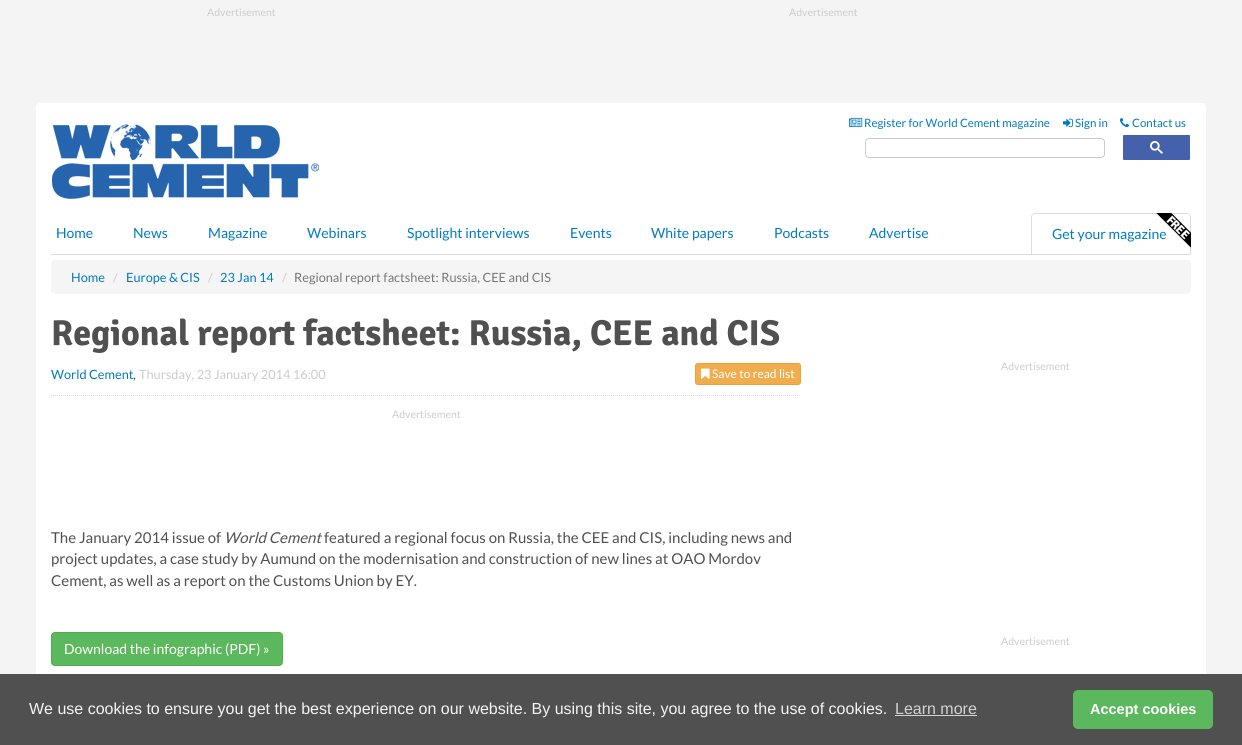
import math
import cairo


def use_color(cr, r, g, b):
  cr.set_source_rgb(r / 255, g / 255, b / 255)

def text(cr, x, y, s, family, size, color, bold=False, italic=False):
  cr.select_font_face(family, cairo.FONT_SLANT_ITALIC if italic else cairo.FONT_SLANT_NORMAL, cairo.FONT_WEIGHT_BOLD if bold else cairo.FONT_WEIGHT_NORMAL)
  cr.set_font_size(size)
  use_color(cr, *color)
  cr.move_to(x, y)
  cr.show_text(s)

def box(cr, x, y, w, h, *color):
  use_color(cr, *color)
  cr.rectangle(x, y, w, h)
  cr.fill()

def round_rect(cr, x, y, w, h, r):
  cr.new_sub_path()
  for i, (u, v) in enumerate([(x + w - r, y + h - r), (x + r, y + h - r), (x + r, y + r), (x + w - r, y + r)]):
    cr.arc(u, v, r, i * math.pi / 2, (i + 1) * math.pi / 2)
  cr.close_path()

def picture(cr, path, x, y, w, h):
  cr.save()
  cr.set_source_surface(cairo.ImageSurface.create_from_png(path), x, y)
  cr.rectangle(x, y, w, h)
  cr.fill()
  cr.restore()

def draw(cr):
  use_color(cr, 244, 244, 244)
  cr.paint()
  use_color(cr, 255, 255, 255)
  round_rect(cr, 36, 103, 1170, 39, 4)
  cr.fill()
  picture(cr, "img_01.png", 849, 117, 14, 10)
  picture(cr, "img_02.png", 1063, 118, 10, 9)
  picture(cr, "img_03.png", 1120, 117, 10, 10)
  box(cr, 36, 139, 1170, 74, 255, 255, 255)
  picture(cr, "img_04.png", 52, 124, 267, 75)
  round_rect(cr, 865.5, 138.5, 239, 19, 3.5)
  use_color(cr, 204, 204, 204)
  cr.set_line_width(1)
  cr.stroke()
  use_color(cr, 69, 97, 172)
  round_rect(cr, 1122.5, 134.5, 68, 26, 1.5)
  cr.fill_preserve()
  use_color(cr, 255, 255, 255)
  cr.stroke()
  picture(cr, "img_05.png", 1150, 141, 13, 13)
  box(cr, 36, 213, 1170, 101, 255, 255, 255)
  box(cr, 51, 254, 1140, 1, 221, 221, 221)
  cr.set_fill_rule(cairo.FILL_RULE_EVEN_ODD)
  cr.new_path()
  cr.move_to(1035, 213)
  cr.line_to(1187, 213)
  cr.curve_to(1189, 213, 1191, 215, 1191, 217)
  cr.line_to(1191, 254)
  cr.line_to(1031, 254)
  cr.line_to(1031, 217)
  cr.curve_to(1031, 215, 1033, 213, 1035, 213)
  cr.close_path()
  cr.move_to(1035, 214)
  cr.line_to(1187, 214)
  cr.curve_to(1189, 214, 1190, 215, 1190, 217)
  cr.line_to(1190, 254)
  cr.line_to(1032, 254)
  cr.line_to(1032, 217)
  cr.curve_to(1032, 215, 1033, 214, 1035, 214)
  cr.close_path()
  cr.fill()
  use_color(cr, 245, 245, 245)
  round_rect(cr, 51, 260, 1140, 34, 4)
  cr.fill()
  use_color(cr, 255, 255, 255)
  round_rect(cr, 36, 310, 1170, 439, 4)
  cr.fill()
  use_color(cr, 240, 173, 78)
  round_rect(cr, 695.5, 363.5, 105, 21, 2.5)
  cr.fill_preserve()
  use_color(cr, 238, 162, 54)
  cr.stroke()
  picture(cr, "img_07.png", 701, 368, 9, 11)
  cr.new_path()
  cr.move_to(51, 395.5)
  cr.line_to(801, 395.5)
  use_color(cr, 221, 221, 221)
  cr.set_dash([1, 1])
  cr.stroke()
  use_color(cr, 92, 184, 92)
  round_rect(cr, 51.5, 632.5, 231, 33, 3.5)
  cr.fill_preserve()
  use_color(cr, 76, 174, 76)
  cr.set_dash([])
  cr.stroke()
  box(cr, 0, 674, 1242, 71, 80, 80, 80)
  box(cr, 895, 715, 82, 1, 211, 211, 211)
  use_color(cr, 92, 184, 92)
  round_rect(cr, 1073, 690, 140, 39, 5)
  cr.fill()
  text(cr, 207, 16, "Advertisement", "Lato", 10.5, (204, 204, 204))
  text(cr, 789, 16, "Advertisement", "Lato", 10.5, (204, 204, 204))
  text(cr, 864, 127, "Register for World Cement magazine", "Lato", 11.5, (0, 122, 195))
  text(cr, 1075, 127, "Sign in", "Lato", 11.5, (0, 122, 195))
  text(cr, 1132, 127, "Contact us", "Lato", 11.5, (0, 122, 195))
  text(cr, 56, 238, "Home", "Lato", 14, (0, 122, 195))
  text(cr, 133, 238, "News", "Lato", 14, (0, 122, 195))
  text(cr, 208, 238, "Magazine", "Lato", 14, (0, 122, 195))
  text(cr, 307, 238, "Webinars", "Lato", 14, (0, 122, 195))
  text(cr, 407, 238, "Spotlight interviews", "Lato", 14, (0, 122, 195))
  text(cr, 570, 238, "Events", "Lato", 14, (0, 122, 195))
  text(cr, 651, 238, "White papers", "Lato", 14, (0, 122, 195))
  text(cr, 774, 238, "Podcasts", "Lato", 14, (0, 122, 195))
  text(cr, 869, 238, "Advertise", "Lato", 14, (0, 122, 195))
  text(cr, 1052, 239, "Get your magazine", "Lato", 14, (0, 122, 195))
  picture(cr, "img_06.png", 1156, 213, 35, 35)
  text(cr, 71, 282, "Home", "Lato", 12.75, (0, 122, 195))
  text(cr, 113, 282, "/", "Lato", 12.75, (204, 204, 204))
  text(cr, 126, 282, "Europe & CIS", "Lato", 12.75, (0, 122, 195))
  text(cr, 208, 282, "/", "Lato", 12.75, (204, 204, 204))
  text(cr, 220, 282, "23 Jan 14", "Lato", 12.75, (0, 122, 195))
  text(cr, 282, 282, "/", "Lato", 12.75, (204, 204, 204))
  text(cr, 294, 282, "Regional report factsheet: Russia, CEE and CIS", "Lato", 12.75, (119, 119, 119))
  text(cr, 51, 345, "Regional report factsheet: Russia, CEE and CIS", "Signika", 36, (80, 80, 80), bold=True)
  text(cr, 51, 379, "World Cement", "Lato", 12.75, (0, 122, 195))
  text(cr, 133, 379, ",", "Lato", 12.75, (80, 80, 80))
  text(cr, 139, 379, "Thursday, 23 January 2014 16:00", "Lato", 12.75, (204, 204, 204))
  text(cr, 712, 378, "Save to read list", "Lato", 12, (255, 255, 255))
  text(cr, 392, 418, "Advertisement", "Lato", 10.5, (204, 204, 204))
  text(cr, 51, 543, "The January 2014 issue of", "Lato", 15, (80, 80, 80))
  text(cr, 224, 543, "World Cement", "Lato", 15, (80, 80, 80), italic=True)
  text(cr, 324, 543, "featured a regional focus on Russia, the CEE and CIS, including news and", "Lato", 15, (80, 80, 80))
  text(cr, 51, 564, "project updates, a case study by Aumund on the modernisation and construction of new lines at OAO Mordov", "Lato", 15, (80, 80, 80))
  text(cr, 51, 586, "Cement, as well as a report on the Customs Union by EY.", "Lato", 15, (80, 80, 80))
  text(cr, 64, 654, "Download the infographic (PDF) »", "Lato", 14, (255, 255, 255))
  text(cr, 1001, 370, "Advertisement", "Lato", 10.5, (204, 204, 204))
  text(cr, 1001, 645, "Advertisement", "Lato", 10.5, (204, 204, 204))
  text(cr, 29, 714, "We use cookies to ensure you get the best experience on our website. By using this site, you agree to the use of cookies.", "Liberation Sans", 16, (244, 244, 244))
  text(cr, 895, 714, "Learn more", "Liberation Sans", 16, (211, 211, 211))
  text(cr, 1090, 714, "Accept cookies", "Liberation Sans", 14.5, (255, 255, 255), bold=True)


surface = cairo.ImageSurface(cairo.FORMAT_RGB24, 1242, 745)
cr = cairo.Context(surface)
options = cairo.FontOptions()
options.set_hint_metrics(cairo.HINT_METRICS_OFF)
options.set_hint_style(cairo.HINT_STYLE_NONE)
cr.set_font_options(options)
cr.set_miter_limit(4)
draw(cr)
surface.write_to_png("out.png")
